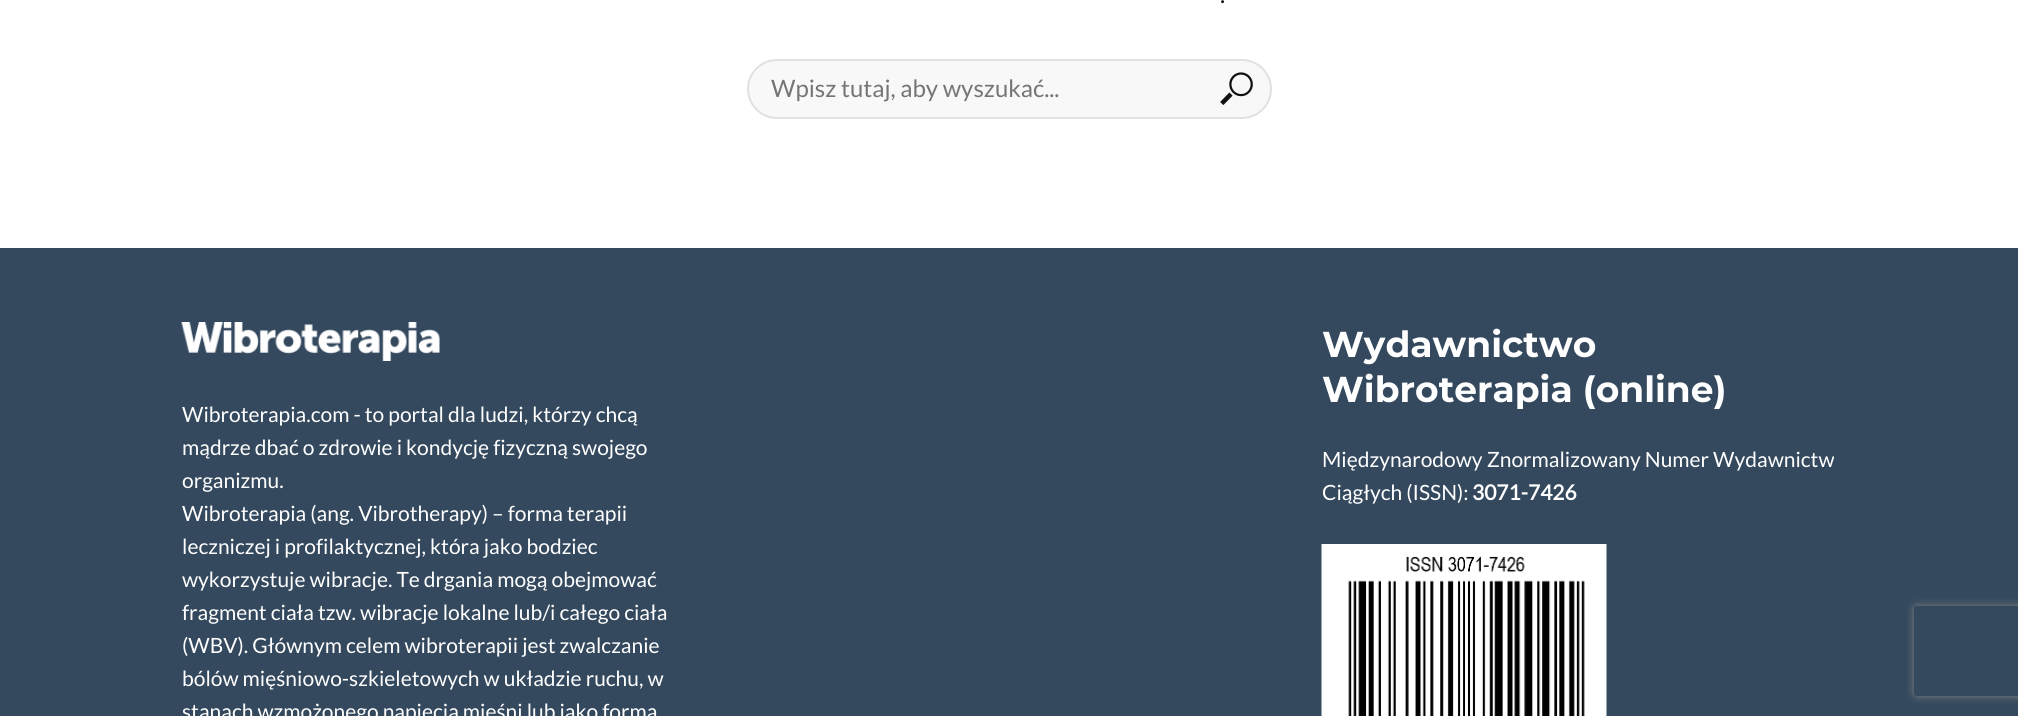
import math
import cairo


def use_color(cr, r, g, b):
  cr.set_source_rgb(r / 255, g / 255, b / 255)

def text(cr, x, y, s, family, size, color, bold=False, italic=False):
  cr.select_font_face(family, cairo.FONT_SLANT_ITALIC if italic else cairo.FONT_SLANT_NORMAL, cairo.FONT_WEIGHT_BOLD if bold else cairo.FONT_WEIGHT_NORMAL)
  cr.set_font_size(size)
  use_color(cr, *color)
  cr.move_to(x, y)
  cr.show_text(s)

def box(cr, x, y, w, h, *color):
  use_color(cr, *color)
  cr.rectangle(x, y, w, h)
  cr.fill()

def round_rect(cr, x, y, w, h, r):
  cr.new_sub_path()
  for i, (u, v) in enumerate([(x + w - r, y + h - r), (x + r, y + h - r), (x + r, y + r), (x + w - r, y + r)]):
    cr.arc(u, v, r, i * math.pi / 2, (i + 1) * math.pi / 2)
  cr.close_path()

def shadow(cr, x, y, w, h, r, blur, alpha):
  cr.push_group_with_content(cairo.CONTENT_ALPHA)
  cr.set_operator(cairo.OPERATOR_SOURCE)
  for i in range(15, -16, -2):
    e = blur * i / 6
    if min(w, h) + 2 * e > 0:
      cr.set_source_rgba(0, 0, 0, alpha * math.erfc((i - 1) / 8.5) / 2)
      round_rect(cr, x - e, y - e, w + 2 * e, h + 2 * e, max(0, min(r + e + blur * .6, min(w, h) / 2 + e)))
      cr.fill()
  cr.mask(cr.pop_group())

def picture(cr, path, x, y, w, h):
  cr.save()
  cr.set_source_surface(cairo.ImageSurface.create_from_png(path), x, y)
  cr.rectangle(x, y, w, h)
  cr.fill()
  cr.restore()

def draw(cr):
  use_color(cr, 255, 255, 255)
  cr.paint()
  use_color(cr, 248, 248, 248)
  round_rect(cr, 747, 59, 525, 60, 30)
  cr.fill()
  round_rect(cr, 748, 60, 523, 58, 29)
  cr.set_source_rgba(0.067, 0.067, 0.067, 0.1)
  cr.stroke()
  picture(cr, "img_01.png", 1220, 72, 33, 33)
  box(cr, 0, 248, 2018, 468, 52, 73, 94)
  picture(cr, "img_02.png", 181, 322, 259, 39)
  picture(cr, "img_03.png", 1321, 544, 286, 172)
  cr.save()
  cr.set_fill_rule(cairo.FILL_RULE_EVEN_ODD)
  cr.new_path()
  cr.move_to(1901, 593)
  cr.line_to(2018, 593)
  cr.line_to(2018, 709)
  cr.line_to(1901, 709)
  cr.close_path()
  cr.move_to(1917, 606)
  cr.line_to(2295, 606)
  cr.curve_to(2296.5, 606, 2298, 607.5, 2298, 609)
  cr.line_to(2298, 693)
  cr.curve_to(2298, 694.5, 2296.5, 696, 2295, 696)
  cr.line_to(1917, 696)
  cr.curve_to(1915.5, 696, 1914, 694.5, 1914, 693)
  cr.line_to(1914, 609)
  cr.curve_to(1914, 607.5, 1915.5, 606, 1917, 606)
  cr.close_path()
  cr.clip()
  use_color(cr, 128, 128, 128)
  shadow(cr, 1914, 606, 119, 90, 3, 4, 1)
  cr.restore()
  text(cr, 1220, 3, ".", "Lato", 24, (17, 17, 17))
  text(cr, 771, 97, "Wpisz tutaj, aby wyszukać...", "Lato", 24, (117, 117, 117))
  text(cr, 182, 422, "Wibroterapia.com - to portal dla ludzi, którzy chcą", "Lato", 21, (255, 255, 255))
  text(cr, 182, 455, "mądrze dbać o zdrowie i kondycję fizyczną swojego", "Lato", 21, (255, 255, 255))
  text(cr, 182, 488, "organizmu.", "Lato", 21, (255, 255, 255))
  text(cr, 182, 521, "Wibroterapia (ang. Vibrotherapy) – forma terapii", "Lato", 21, (255, 255, 255))
  text(cr, 182, 554, "leczniczej i profilaktycznej, która jako bodziec", "Lato", 21, (255, 255, 255))
  text(cr, 182, 587, "wykorzystuje wibracje. Te drgania mogą obejmować", "Lato", 21, (255, 255, 255))
  text(cr, 182, 620, "fragment ciała tzw. wibracje lokalne lub/i całego ciała", "Lato", 21, (255, 255, 255))
  text(cr, 182, 653, "(WBV). Głównym celem wibroterapii jest zwalczanie", "Lato", 21, (255, 255, 255))
  text(cr, 182, 686, "bólów mięśniowo-szkieletowych w układzie ruchu, w", "Lato", 21, (255, 255, 255))
  text(cr, 182, 719, "stanach wzmożonego napięcia mięśni lub jako forma", "Lato", 21, (255, 255, 255))
  text(cr, 1322, 357, "Wydawnictwo", "Montserrat", 36, (255, 255, 255), bold=True)
  text(cr, 1322, 402, "Wibroterapia (online)", "Montserrat", 36, (255, 255, 255), bold=True)
  text(cr, 1322, 467, "Międzynarodowy Znormalizowany Numer Wydawnictw", "Lato", 21, (255, 255, 255))
  text(cr, 1322, 500, "Ciągłych (ISSN):", "Lato", 21, (255, 255, 255))
  text(cr, 1472, 500, "3071-7426", "Lato", 21, (255, 255, 255), bold=True)


surface = cairo.ImageSurface(cairo.FORMAT_RGB24, 2018, 716)
cr = cairo.Context(surface)
options = cairo.FontOptions()
options.set_hint_metrics(cairo.HINT_METRICS_OFF)
options.set_hint_style(cairo.HINT_STYLE_NONE)
cr.set_font_options(options)
cr.set_miter_limit(4)
draw(cr)
surface.write_to_png("out.png")
